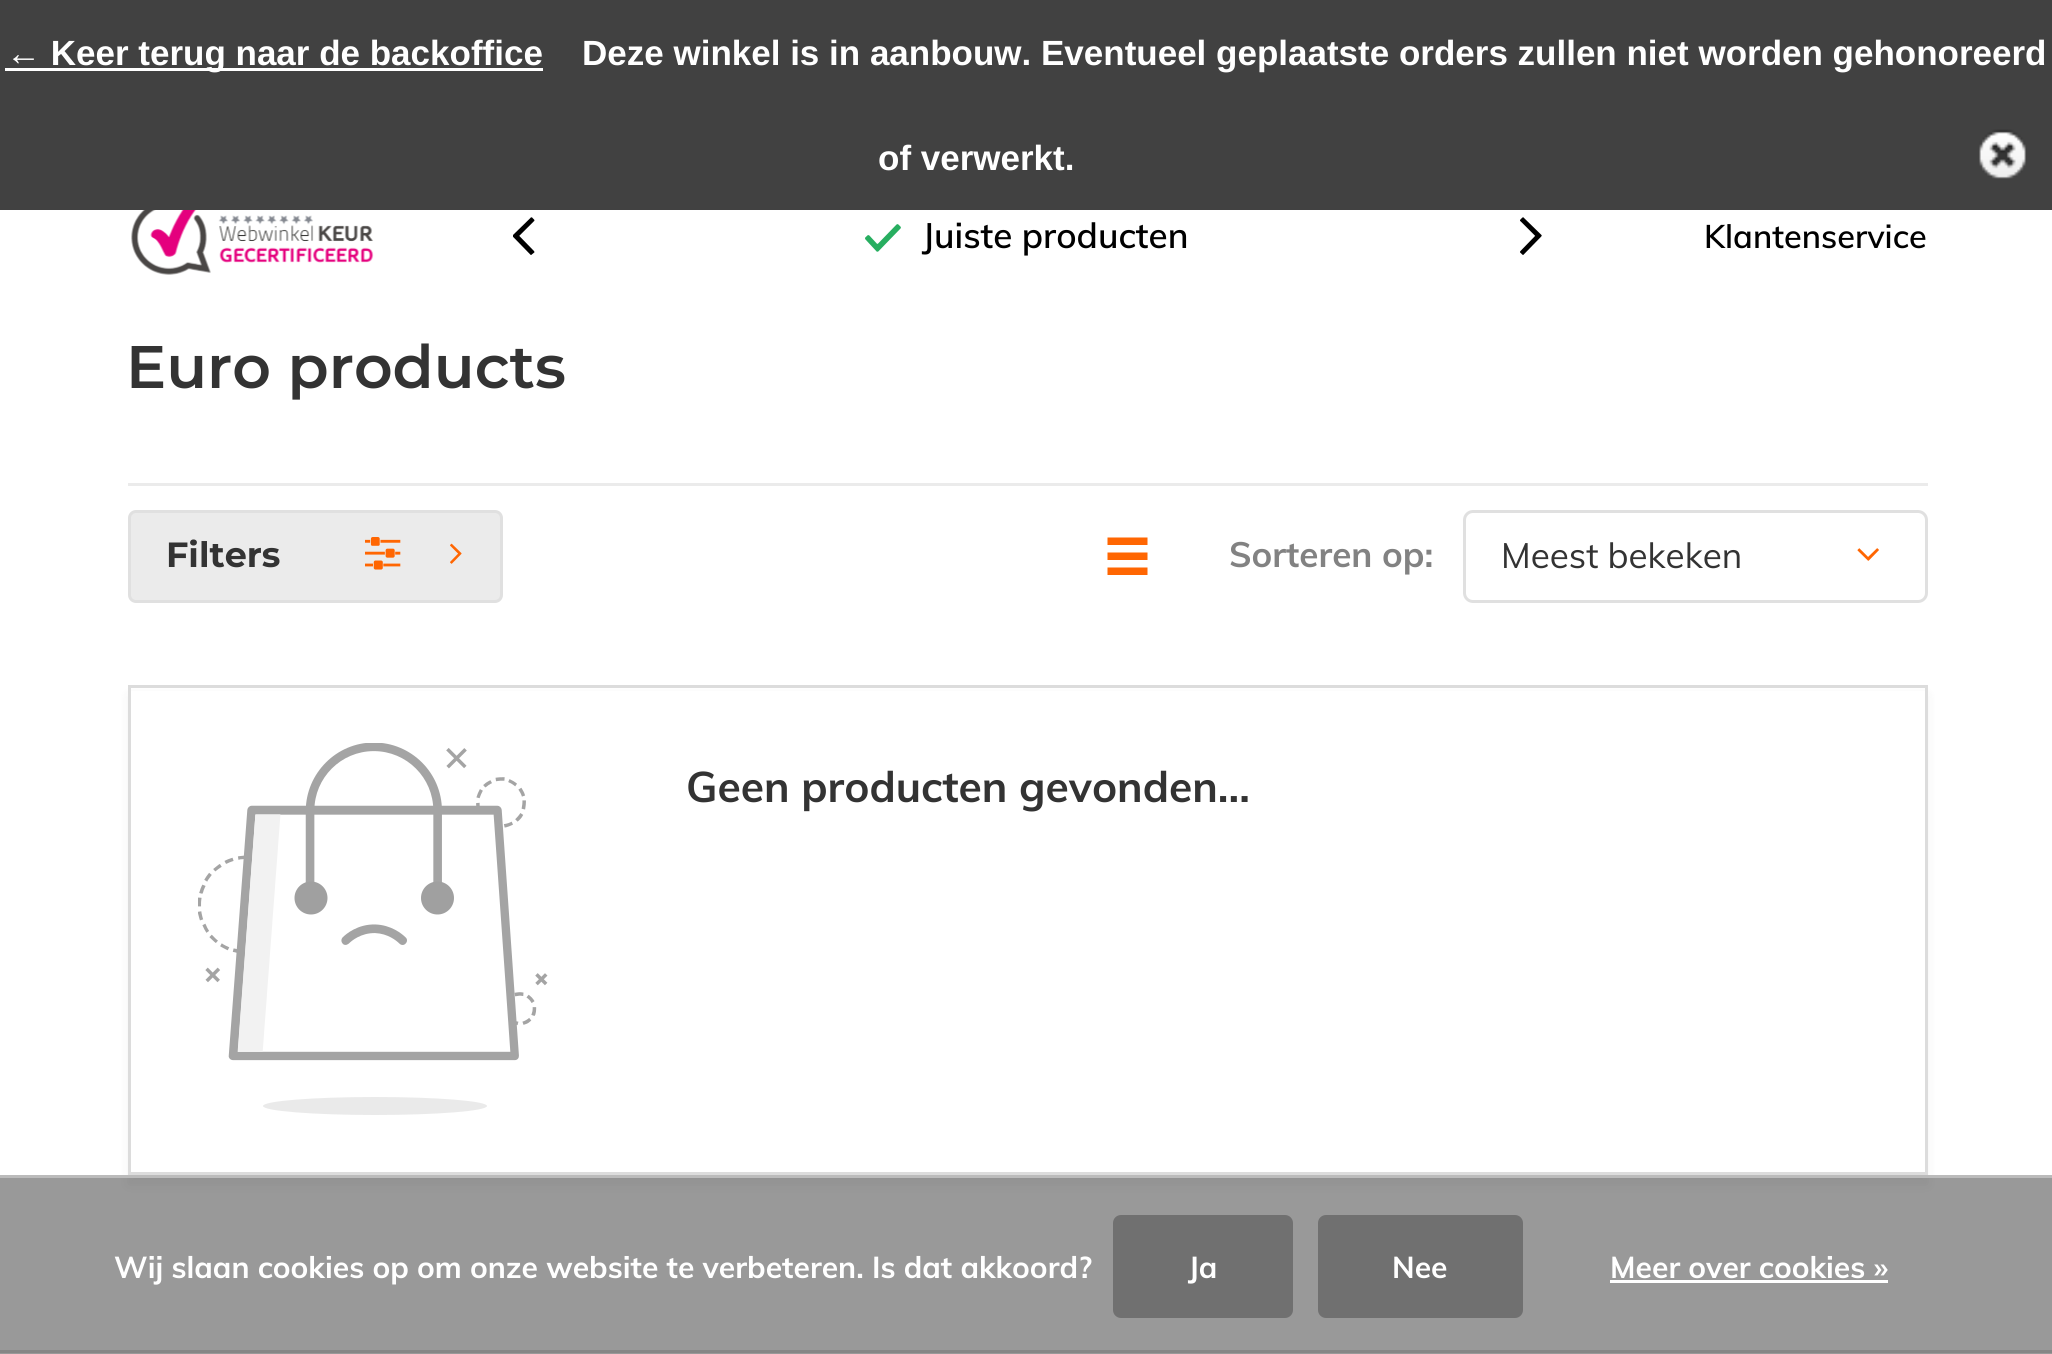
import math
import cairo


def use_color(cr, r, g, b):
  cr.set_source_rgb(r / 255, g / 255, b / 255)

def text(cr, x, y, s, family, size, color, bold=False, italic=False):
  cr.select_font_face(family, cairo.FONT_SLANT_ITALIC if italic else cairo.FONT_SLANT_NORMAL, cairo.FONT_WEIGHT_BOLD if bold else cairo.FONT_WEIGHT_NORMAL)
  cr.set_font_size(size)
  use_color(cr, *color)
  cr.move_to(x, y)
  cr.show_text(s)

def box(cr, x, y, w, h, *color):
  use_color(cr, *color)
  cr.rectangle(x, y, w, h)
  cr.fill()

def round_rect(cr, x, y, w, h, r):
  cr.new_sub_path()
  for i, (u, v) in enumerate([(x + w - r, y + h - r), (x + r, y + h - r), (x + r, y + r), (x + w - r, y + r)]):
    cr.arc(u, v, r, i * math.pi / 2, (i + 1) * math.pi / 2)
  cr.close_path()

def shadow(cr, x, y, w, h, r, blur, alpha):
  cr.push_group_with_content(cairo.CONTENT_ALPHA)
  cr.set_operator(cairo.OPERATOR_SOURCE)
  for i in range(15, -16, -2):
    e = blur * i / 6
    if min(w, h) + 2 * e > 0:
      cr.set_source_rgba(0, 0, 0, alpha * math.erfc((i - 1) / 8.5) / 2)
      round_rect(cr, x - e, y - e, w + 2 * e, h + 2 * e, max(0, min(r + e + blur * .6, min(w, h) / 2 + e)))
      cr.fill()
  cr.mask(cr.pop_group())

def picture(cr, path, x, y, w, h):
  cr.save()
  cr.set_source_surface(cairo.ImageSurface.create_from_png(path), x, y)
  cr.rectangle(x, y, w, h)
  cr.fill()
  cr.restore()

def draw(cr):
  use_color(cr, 255, 255, 255)
  cr.paint()
  box(cr, 0, 0, 2052, 210, 65, 65, 65)
  box(cr, 5, 68, 538, 3, 255, 255, 255)
  picture(cr, "img_01.png", 1979, 129, 47, 50)
  picture(cr, "img_02.png", 513, 217, 22, 38)
  picture(cr, "img_03.png", 1520, 217, 22, 38)
  picture(cr, "img_04.png", 865, 224, 36, 28)
  picture(cr, "img_05.png", 131, 210, 243, 65)
  box(cr, 128, 483, 1800, 3, 235, 235, 235)
  round_rect(cr, 129.5, 511.5, 372, 90, 6.5)
  cr.fill_preserve()
  use_color(cr, 224, 224, 224)
  cr.set_line_width(3)
  cr.stroke()
  picture(cr, "img_06.png", 365, 537, 36, 33)
  picture(cr, "img_07.png", 450, 543, 12, 21)
  use_color(cr, 255, 102, 2)
  cr.new_path()
  cr.move_to(1107.5, 537.5)
  cr.line_to(1147.5, 537.5)
  cr.line_to(1147.5, 545)
  cr.line_to(1107.5, 545)
  cr.close_path()
  cr.move_to(1107.5, 552.5)
  cr.line_to(1147.5, 552.5)
  cr.line_to(1147.5, 560)
  cr.line_to(1107.5, 560)
  cr.close_path()
  cr.move_to(1107.5, 567.5)
  cr.line_to(1147.5, 567.5)
  cr.line_to(1147.5, 575)
  cr.line_to(1107.5, 575)
  cr.close_path()
  cr.fill()
  picture(cr, "img_08.png", 1857, 548, 22, 13)
  round_rect(cr, 1464.5, 511.5, 462, 90, 8.5)
  use_color(cr, 224, 224, 224)
  cr.stroke()
  use_color(cr, 0, 0, 0)
  shadow(cr, 128, 695, 1800, 490, 0, 5, 0.05)
  box(cr, 131, 691, 1794, 481, 255, 255, 255)
  cr.rectangle(129.5, 686.5, 1797, 487)
  use_color(cr, 220, 220, 220)
  cr.stroke()
  picture(cr, "img_09.png", 198, 743, 350, 372)
  box(cr, 0, 1350, 2052, 3, 224, 224, 224)
  cr.set_source_rgba(0, 0, 0, 0.4)
  cr.rectangle(0, 1178, 2052, 176)
  cr.fill()
  box(cr, 0, 1175, 2052, 3, 187, 187, 187)
  use_color(cr, 112, 112, 112)
  round_rect(cr, 1113, 1215, 180, 103, 8)
  cr.fill()
  round_rect(cr, 1318, 1215, 205, 103, 8)
  cr.fill()
  box(cr, 1610, 1280, 278, 3, 255, 255, 255)
  text(cr, 6, 65, "← Keer terug naar de backoffice", "Liberation Sans", 35, (255, 255, 255), bold=True)
  text(cr, 582, 65, "Deze winkel is in aanbouw. Eventueel geplaatste orders zullen niet worden gehonoreerd", "Liberation Sans", 35, (255, 255, 255), bold=True)
  text(cr, 878, 170, "of verwerkt.", "Liberation Sans", 35, (255, 255, 255), bold=True)
  text(cr, 922, 248, "Juiste producten", "Muli SemiBold", 35, (0, 0, 0))
  text(cr, 1704, 248, "Klantenservice", "Muli SemiBold", 32.5, (0, 0, 0))
  text(cr, 126, 388, "Euro products", "Montserrat SemiBold", 60, (51, 51, 51))
  text(cr, 166, 567, "Filters", "Montserrat", 35, (51, 51, 51), bold=True)
  text(cr, 1229, 567, "Sorteren op:", "Muli", 35, (130, 130, 130), bold=True)
  text(cr, 1501, 568, "Meest bekeken", "Muli", 35, (51, 51, 51))
  text(cr, 686, 802, "Geen producten gevonden...", "Muli", 42.5, (51, 51, 51), bold=True)
  text(cr, 114, 1278, "Wij slaan cookies op om onze website te verbeteren. Is dat akkoord?", "Muli", 30, (255, 255, 255), bold=True)
  text(cr, 1188, 1278, "Ja", "Muli", 30, (255, 255, 255), bold=True)
  text(cr, 1392, 1278, "Nee", "Muli", 30, (255, 255, 255), bold=True)
  text(cr, 1610, 1278, "Meer over cookies »", "Muli", 30, (255, 255, 255), bold=True)


surface = cairo.ImageSurface(cairo.FORMAT_RGB24, 2052, 1354)
cr = cairo.Context(surface)
options = cairo.FontOptions()
options.set_hint_metrics(cairo.HINT_METRICS_OFF)
options.set_hint_style(cairo.HINT_STYLE_NONE)
cr.set_font_options(options)
cr.set_miter_limit(4)
draw(cr)
surface.write_to_png("out.png")
